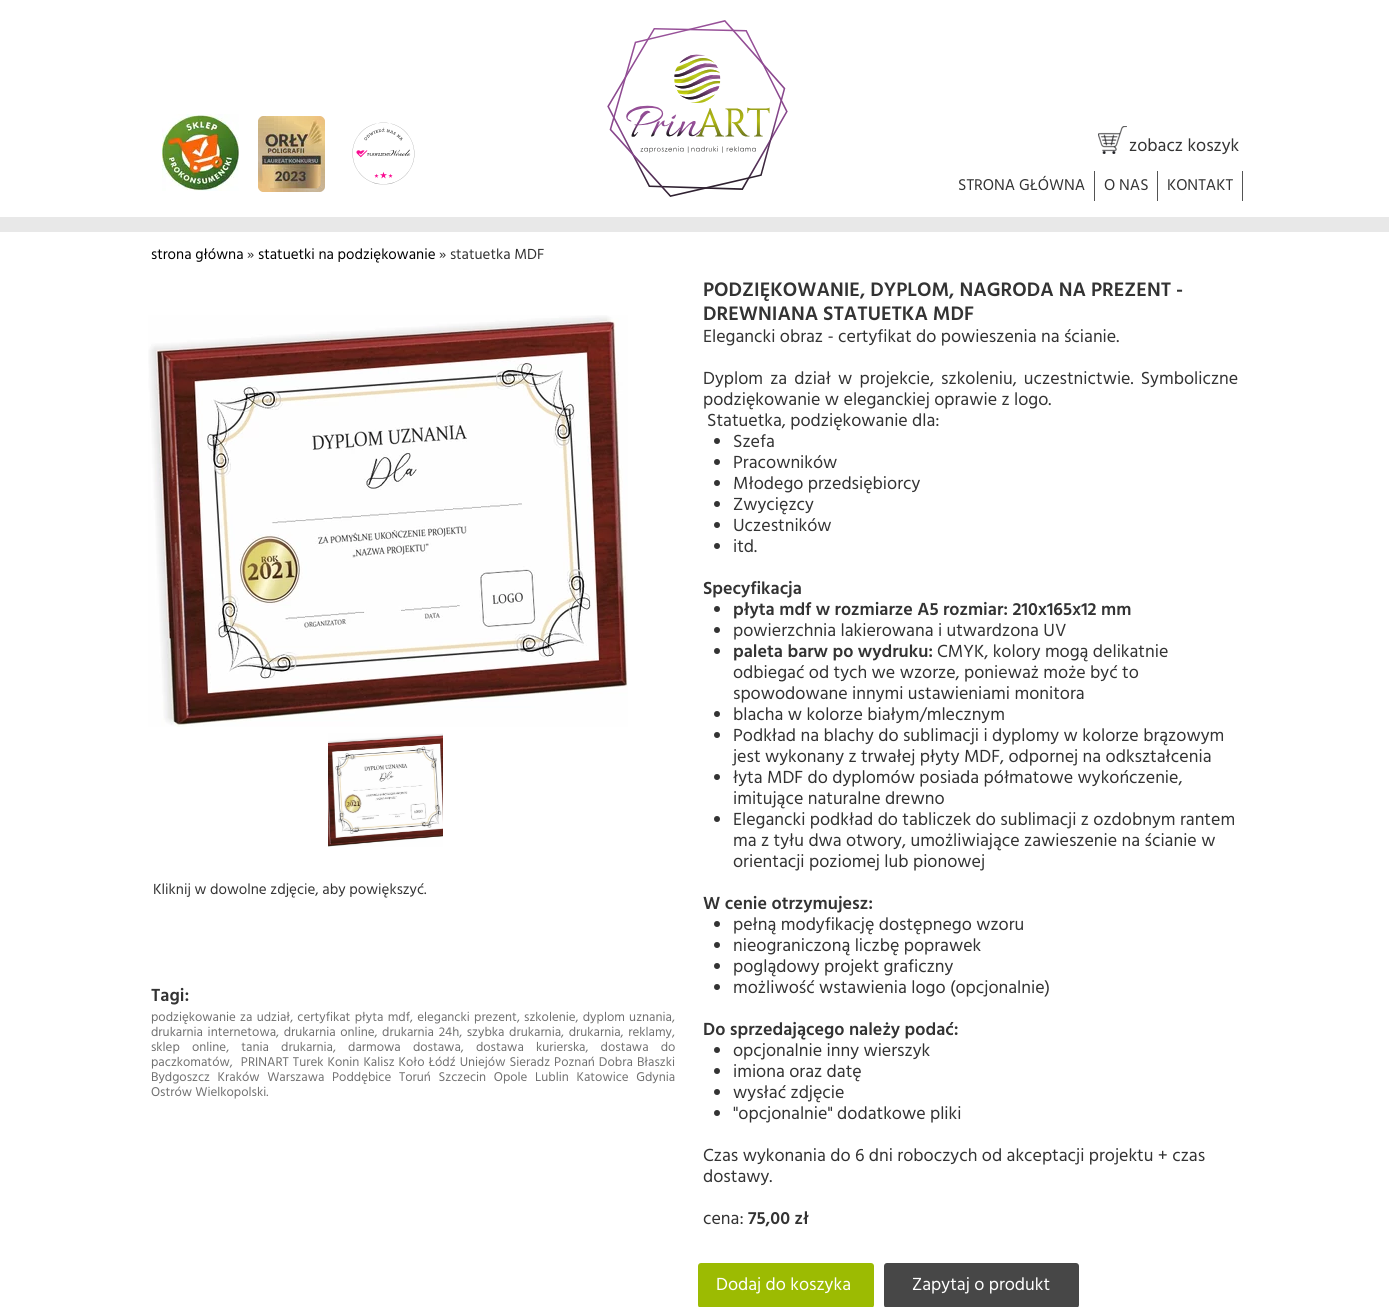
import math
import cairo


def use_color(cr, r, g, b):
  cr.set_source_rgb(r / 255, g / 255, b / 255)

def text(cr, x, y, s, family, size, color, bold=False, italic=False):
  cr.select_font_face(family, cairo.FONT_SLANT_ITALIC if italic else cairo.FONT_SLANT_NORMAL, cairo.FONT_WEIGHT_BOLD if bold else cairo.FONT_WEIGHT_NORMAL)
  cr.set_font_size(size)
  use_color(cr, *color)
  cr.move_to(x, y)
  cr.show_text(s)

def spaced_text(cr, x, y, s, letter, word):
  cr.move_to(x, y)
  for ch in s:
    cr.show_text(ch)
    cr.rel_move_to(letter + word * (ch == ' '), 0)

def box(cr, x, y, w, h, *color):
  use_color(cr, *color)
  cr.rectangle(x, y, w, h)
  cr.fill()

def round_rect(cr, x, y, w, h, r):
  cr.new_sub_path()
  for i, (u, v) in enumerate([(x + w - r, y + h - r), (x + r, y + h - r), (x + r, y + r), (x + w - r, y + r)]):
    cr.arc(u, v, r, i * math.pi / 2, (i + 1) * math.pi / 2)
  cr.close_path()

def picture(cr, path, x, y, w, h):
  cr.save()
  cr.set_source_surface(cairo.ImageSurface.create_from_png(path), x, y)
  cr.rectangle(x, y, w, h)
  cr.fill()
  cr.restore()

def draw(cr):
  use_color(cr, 255, 255, 255)
  cr.paint()
  picture(cr, "img_01.png", 162, 114, 77, 77)
  picture(cr, "img_02.png", 258, 116, 67, 76)
  picture(cr, "img_03.png", 352, 122, 63, 63)
  picture(cr, "img_04.png", 607, 20, 181, 177)
  picture(cr, "img_05.png", 1098, 126, 29, 28)
  box(cr, 1094, 171, 1, 30, 84, 84, 84)
  box(cr, 1157, 171, 1, 30, 84, 84, 84)
  box(cr, 1242, 171, 1, 30, 84, 84, 84)
  box(cr, 0, 217, 1389, 15, 232, 232, 232)
  picture(cr, "img_06.png", 148, 315, 480, 412)
  picture(cr, "img_07.png", 328, 733, 115, 114)
  use_color(cr, 51, 51, 51)
  cr.arc(717, 441, 3, 0, 2 * math.pi)
  cr.fill()
  cr.arc(717, 462, 3, 0, 2 * math.pi)
  cr.fill()
  cr.arc(717, 483, 3, 0, 2 * math.pi)
  cr.fill()
  cr.arc(717, 504, 3, 0, 2 * math.pi)
  cr.fill()
  cr.arc(717, 525, 3, 0, 2 * math.pi)
  cr.fill()
  cr.arc(717, 546, 3, 0, 2 * math.pi)
  cr.fill()
  cr.arc(717, 609, 3, 0, 2 * math.pi)
  cr.fill()
  cr.arc(717, 630, 3, 0, 2 * math.pi)
  cr.fill()
  cr.arc(717, 651, 3, 0, 2 * math.pi)
  cr.fill()
  cr.arc(717, 714, 3, 0, 2 * math.pi)
  cr.fill()
  cr.arc(717, 735, 3, 0, 2 * math.pi)
  cr.fill()
  cr.arc(717, 777, 3, 0, 2 * math.pi)
  cr.fill()
  cr.arc(717, 819, 3, 0, 2 * math.pi)
  cr.fill()
  cr.arc(717, 924, 3, 0, 2 * math.pi)
  cr.fill()
  cr.arc(717, 945, 3, 0, 2 * math.pi)
  cr.fill()
  cr.arc(717, 966, 3, 0, 2 * math.pi)
  cr.fill()
  cr.arc(717, 987, 3, 0, 2 * math.pi)
  cr.fill()
  cr.arc(717, 1050, 3, 0, 2 * math.pi)
  cr.fill()
  cr.arc(717, 1071, 3, 0, 2 * math.pi)
  cr.fill()
  cr.arc(717, 1092, 3, 0, 2 * math.pi)
  cr.fill()
  cr.arc(717, 1113, 3, 0, 2 * math.pi)
  cr.fill()
  use_color(cr, 156, 187, 2)
  round_rect(cr, 698, 1263, 176, 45, 3)
  cr.fill()
  use_color(cr, 71, 71, 71)
  round_rect(cr, 884, 1263, 195, 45, 3)
  cr.fill()
  text(cr, 1129, 151, "zobacz koszyk", "Hind", 18, (51, 51, 51))
  text(cr, 958, 190, "STRONA GŁÓWNA", "Hind", 16, (51, 51, 51))
  text(cr, 1104, 190, "O NAS", "Hind", 16, (51, 51, 51))
  text(cr, 1167, 190, "KONTAKT", "Hind", 16, (51, 51, 51))
  text(cr, 151, 259, "strona główna", "Hind", 15, (0, 0, 0))
  text(cr, 247, 259, "»", "Hind", 15, (51, 51, 51))
  text(cr, 258, 259, "statuetki na podziękowanie", "Hind", 15, (0, 0, 0))
  text(cr, 439, 259, "» statuetka MDF", "Hind", 15, (51, 51, 51))
  text(cr, 703, 296, "PODZIĘKOWANIE, DYPLOM, NAGRODA NA PREZENT -", "Hind SemiBold", 20, (51, 51, 51))
  text(cr, 703, 320, "DREWNIANA STATUETKA MDF", "Hind SemiBold", 20, (51, 51, 51))
  text(cr, 703, 342, "Elegancki obraz - certyfikat do powieszenia na ścianie.", "Hind", 18, (51, 51, 51))
  spaced_text(cr, 703, 384, "Dyplom za dział w projekcie, szkoleniu, uczestnictwie. Symboliczne", 0, 2.75)
  text(cr, 703, 405, "podziękowanie w eleganckiej oprawie z logo.", "Hind", 18, (51, 51, 51))
  text(cr, 707, 426, "Statuetka, podziękowanie dla:", "Hind", 18, (51, 51, 51))
  text(cr, 733, 447, "Szefa", "Hind", 18, (51, 51, 51))
  text(cr, 733, 468, "Pracowników", "Hind", 18, (51, 51, 51))
  text(cr, 733, 489, "Młodego przedsiębiorcy", "Hind", 18, (51, 51, 51))
  text(cr, 733, 510, "Zwycięzcy", "Hind", 18, (51, 51, 51))
  text(cr, 733, 531, "Uczestników", "Hind", 18, (51, 51, 51))
  text(cr, 733, 552, "itd.", "Hind", 18, (51, 51, 51))
  text(cr, 703, 594, "Specyfikacja", "Hind SemiBold", 18, (51, 51, 51))
  text(cr, 733, 615, "płyta mdf w rozmiarze A5 rozmiar: 210x165x12 mm", "Hind SemiBold", 18, (51, 51, 51))
  text(cr, 733, 636, "powierzchnia lakierowana i utwardzona UV", "Hind", 18, (51, 51, 51))
  text(cr, 733, 657, "paleta barw po wydruku:", "Hind SemiBold", 18, (51, 51, 51))
  text(cr, 937, 657, "CMYK, kolory mogą delikatnie", "Hind", 18, (51, 51, 51))
  text(cr, 733, 678, "odbiegać od tych we wzorze, ponieważ może być to", "Hind", 18, (51, 51, 51))
  text(cr, 733, 699, "spowodowane innymi ustawieniami monitora", "Hind", 18, (51, 51, 51))
  text(cr, 733, 720, "blacha w kolorze białym/mlecznym", "Hind", 18, (51, 51, 51))
  text(cr, 733, 741, "Podkład na blachy do sublimacji i dyplomy w kolorze brązowym", "Hind", 18, (51, 51, 51))
  text(cr, 733, 762, "jest wykonany z trwałej płyty MDF, odpornej na odkształcenia", "Hind", 18, (51, 51, 51))
  text(cr, 733, 783, "łyta MDF do dyplomów posiada półmatowe wykończenie,", "Hind", 18, (51, 51, 51))
  text(cr, 733, 804, "imitujące naturalne drewno", "Hind", 18, (51, 51, 51))
  text(cr, 733, 825, "Elegancki podkład do tabliczek do sublimacji z ozdobnym rantem", "Hind", 18, (51, 51, 51))
  text(cr, 733, 846, "ma z tyłu dwa otwory, umożliwiające zawieszenie na ścianie w", "Hind", 18, (51, 51, 51))
  text(cr, 733, 867, "orientacji poziomej lub pionowej", "Hind", 18, (51, 51, 51))
  text(cr, 703, 909, "W cenie otrzymujesz:", "Hind SemiBold", 18, (51, 51, 51))
  text(cr, 733, 930, "pełną modyfikację dostępnego wzoru", "Hind", 18, (51, 51, 51))
  text(cr, 733, 951, "nieograniczoną liczbę poprawek", "Hind", 18, (51, 51, 51))
  text(cr, 733, 972, "poglądowy projekt graficzny", "Hind", 18, (51, 51, 51))
  text(cr, 733, 993, "możliwość wstawienia logo (opcjonalnie)", "Hind", 18, (51, 51, 51))
  text(cr, 703, 1035, "Do sprzedającego należy podać:", "Hind SemiBold", 18, (51, 51, 51))
  text(cr, 733, 1056, "opcjonalnie inny wierszyk", "Hind", 18, (51, 51, 51))
  text(cr, 733, 1077, "imiona oraz datę", "Hind", 18, (51, 51, 51))
  text(cr, 733, 1098, "wysłać zdjęcie", "Hind", 18, (51, 51, 51))
  text(cr, 733, 1119, "\"opcjonalnie\" dodatkowe pliki", "Hind", 18, (51, 51, 51))
  text(cr, 703, 1161, "Czas wykonania do 6 dni roboczych od akceptacji projektu + czas", "Hind", 18, (51, 51, 51))
  text(cr, 703, 1182, "dostawy.", "Hind", 18, (51, 51, 51))
  text(cr, 703, 1224, "cena:", "Hind", 18, (51, 51, 51))
  text(cr, 748, 1224, "75,00 zł", "Hind SemiBold", 18, (51, 51, 51))
  text(cr, 153, 894, "Kliknij w dowolne zdjęcie, aby powiększyć.", "Hind", 15, (51, 51, 51))
  text(cr, 151, 1001, "Tagi:", "Hind SemiBold", 18, (51, 51, 51))
  cr.select_font_face("Hind")
  cr.set_font_size(13)
  use_color(cr, 112, 112, 112)
  spaced_text(cr, 151, 1021, "podziękowanie za udział, certyfikat płyta mdf, elegancki prezent, szkolenie, dyplom uznania,", 0, 1.1)
  spaced_text(cr, 151, 1036, "drukarnia internetowa, drukarnia online, drukarnia 24h, szybka drukarnia, drukarnia, reklamy,", 0, 1.5)
  spaced_text(cr, 151, 1051, "sklep online, tania drukarnia, darmowa dostawa, dostawa kurierska, dostawa do", 0, 9)
  spaced_text(cr, 151, 1066, "paczkomatów,  PRINART Turek Konin Kalisz Koło Łódź Uniejów Sieradz Poznań Dobra Błaszki", 0, 0.9)
  spaced_text(cr, 151, 1081, "Bydgoszcz Kraków Warszawa Poddębice Toruń Szczecin Opole Lublin Katowice Gdynia", 0, 4.5)
  text(cr, 151, 1096, "Ostrów Wielkopolski.", "Hind", 13, (112, 112, 112))
  text(cr, 716, 1290, "Dodaj do koszyka", "Hind", 18, (255, 255, 255))
  text(cr, 912, 1290, "Zapytaj o produkt", "Hind", 18, (255, 255, 255))


surface = cairo.ImageSurface(cairo.FORMAT_RGB24, 1389, 1307)
cr = cairo.Context(surface)
options = cairo.FontOptions()
options.set_hint_metrics(cairo.HINT_METRICS_OFF)
options.set_hint_style(cairo.HINT_STYLE_NONE)
cr.set_font_options(options)
cr.set_miter_limit(4)
draw(cr)
surface.write_to_png("out.png")
